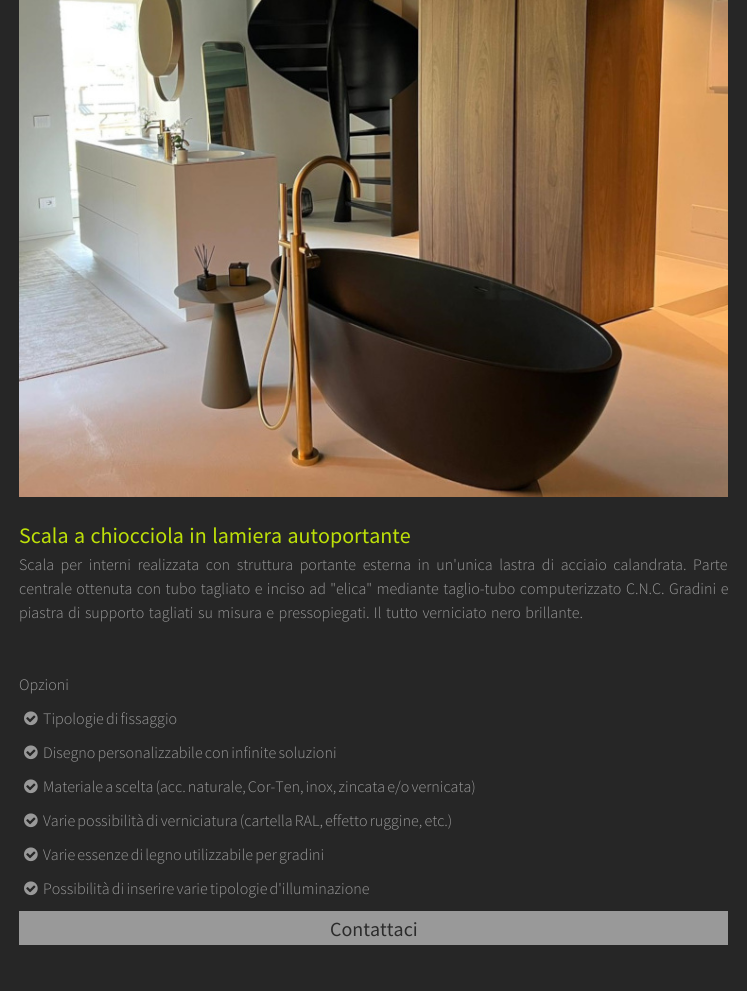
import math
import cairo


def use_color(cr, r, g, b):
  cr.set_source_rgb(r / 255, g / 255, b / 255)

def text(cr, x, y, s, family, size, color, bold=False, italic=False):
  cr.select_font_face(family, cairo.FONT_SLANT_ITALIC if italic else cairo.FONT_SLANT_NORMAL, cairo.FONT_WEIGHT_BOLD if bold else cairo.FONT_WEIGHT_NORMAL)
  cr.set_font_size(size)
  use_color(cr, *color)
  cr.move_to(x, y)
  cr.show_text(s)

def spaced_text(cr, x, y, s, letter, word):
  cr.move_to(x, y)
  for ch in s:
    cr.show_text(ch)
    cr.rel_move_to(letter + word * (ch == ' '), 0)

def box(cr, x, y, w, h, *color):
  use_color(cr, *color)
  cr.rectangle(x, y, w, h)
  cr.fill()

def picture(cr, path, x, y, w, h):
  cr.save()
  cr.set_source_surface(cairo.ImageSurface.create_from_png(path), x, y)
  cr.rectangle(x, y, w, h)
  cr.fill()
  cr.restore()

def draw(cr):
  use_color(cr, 38, 38, 38)
  cr.paint()
  picture(cr, "img_01.png", 19, 0, 709, 497)
  picture(cr, "img_02.png", 24, 711, 14, 15)
  picture(cr, "img_02.png", 24, 745, 14, 15)
  picture(cr, "img_02.png", 24, 779, 14, 15)
  picture(cr, "img_02.png", 24, 813, 14, 15)
  picture(cr, "img_02.png", 24, 847, 14, 15)
  picture(cr, "img_02.png", 24, 881, 14, 15)
  box(cr, 19, 911, 709, 34, 153, 153, 153)
  cr.select_font_face("Source Sans Pro")
  cr.set_font_size(22)
  use_color(cr, 189, 224, 8)
  spaced_text(cr, 19, 543, "Scala a chiocciola in lamiera autoportante", 0, 1)
  cr.select_font_face("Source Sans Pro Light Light")
  cr.set_font_size(16)
  use_color(cr, 153, 153, 153)
  spaced_text(cr, 19, 570, "Scala per interni realizzata con struttura portante esterna in un'unica lastra di acciaio calandrata. Parte", 0, 3.4)
  spaced_text(cr, 19, 594, "centrale ottenuta con tubo tagliato e inciso ad \"elica\" mediante taglio-tubo computerizzato C.N.C. Gradini e", 0, 1.25)
  spaced_text(cr, 19, 618, "piastra di supporto tagliati su misura e pressopiegati. Il tutto verniciato nero brillante.", 0, 1.25)
  text(cr, 19, 690, "Opzioni", "Source Sans Pro Light Light", 16, (153, 153, 153))
  spaced_text(cr, 43, 724, "Tipologie di fissaggio", 0, -1)
  spaced_text(cr, 43, 758, "Disegno personalizzabile con infinite soluzioni", 0, -1)
  spaced_text(cr, 43, 792, "Materiale a scelta (acc. naturale, Cor-Ten, inox, zincata e/o vernicata)", 0, -1)
  spaced_text(cr, 43, 826, "Varie possibilità di verniciatura (cartella RAL, effetto ruggine, etc.)", 0, -1)
  spaced_text(cr, 43, 860, "Varie essenze di legno utilizzabile per gradini", 0, -1)
  spaced_text(cr, 43, 894, "Possibilità di inserire varie tipologie d'illuminazione", 0, -1)
  text(cr, 330, 936, "Contattaci", "Source Sans Pro", 20, (43, 43, 43))


surface = cairo.ImageSurface(cairo.FORMAT_RGB24, 747, 991)
cr = cairo.Context(surface)
options = cairo.FontOptions()
options.set_hint_metrics(cairo.HINT_METRICS_OFF)
options.set_hint_style(cairo.HINT_STYLE_NONE)
cr.set_font_options(options)
cr.set_miter_limit(4)
draw(cr)
surface.write_to_png("out.png")
